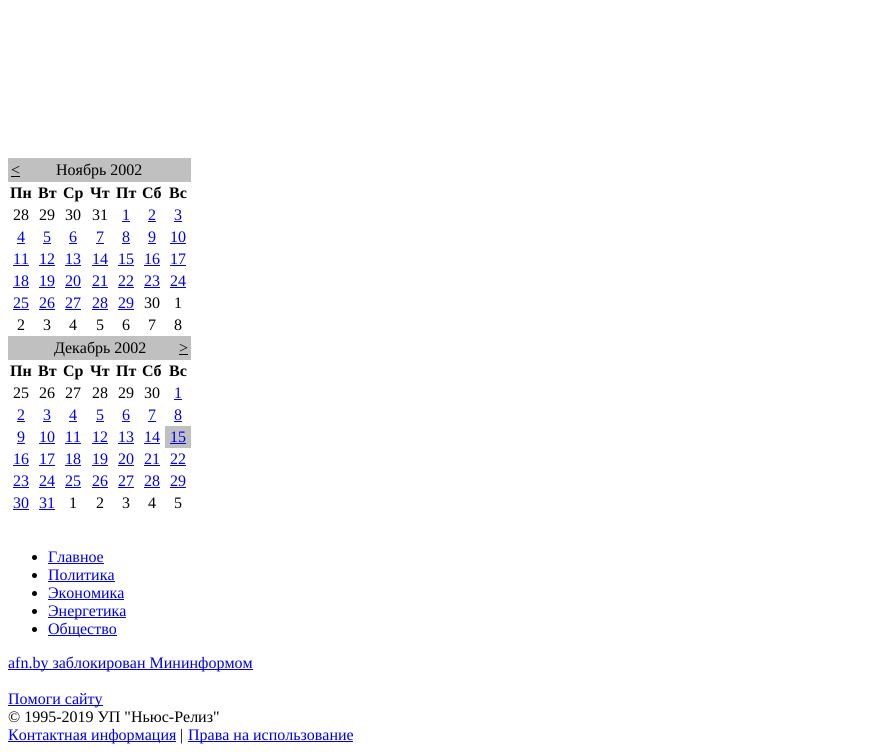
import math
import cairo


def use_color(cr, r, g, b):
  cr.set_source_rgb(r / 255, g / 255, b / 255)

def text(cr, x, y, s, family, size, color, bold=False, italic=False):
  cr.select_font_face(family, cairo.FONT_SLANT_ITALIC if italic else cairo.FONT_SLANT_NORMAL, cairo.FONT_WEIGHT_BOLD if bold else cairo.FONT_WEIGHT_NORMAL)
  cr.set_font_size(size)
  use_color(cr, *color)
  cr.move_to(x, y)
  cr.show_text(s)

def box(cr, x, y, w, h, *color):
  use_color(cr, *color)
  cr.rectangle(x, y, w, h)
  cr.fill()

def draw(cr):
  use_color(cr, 255, 255, 255)
  cr.paint()
  box(cr, 8, 158, 183, 24, 192, 192, 192)
  box(cr, 11, 176, 9, 1, 0, 0, 0)
  box(cr, 122, 221, 8, 1, 0, 0, 238)
  box(cr, 148, 221, 8, 1, 0, 0, 238)
  box(cr, 174, 221, 8, 1, 0, 0, 238)
  box(cr, 17, 243, 8, 1, 0, 0, 238)
  box(cr, 43, 243, 8, 1, 0, 0, 238)
  box(cr, 69, 243, 8, 1, 0, 0, 238)
  box(cr, 96, 243, 8, 1, 0, 0, 238)
  box(cr, 122, 243, 8, 1, 0, 0, 238)
  box(cr, 148, 243, 8, 1, 0, 0, 238)
  box(cr, 170, 243, 16, 1, 0, 0, 238)
  box(cr, 13, 265, 16, 1, 0, 0, 238)
  box(cr, 39, 265, 16, 1, 0, 0, 238)
  box(cr, 65, 265, 16, 1, 0, 0, 238)
  box(cr, 92, 265, 16, 1, 0, 0, 238)
  box(cr, 118, 265, 16, 1, 0, 0, 238)
  box(cr, 144, 265, 16, 1, 0, 0, 238)
  box(cr, 170, 265, 16, 1, 0, 0, 238)
  box(cr, 13, 287, 16, 1, 0, 0, 238)
  box(cr, 39, 287, 16, 1, 0, 0, 238)
  box(cr, 65, 287, 16, 1, 0, 0, 238)
  box(cr, 92, 287, 16, 1, 0, 0, 238)
  box(cr, 118, 287, 16, 1, 0, 0, 238)
  box(cr, 144, 287, 16, 1, 0, 0, 238)
  box(cr, 170, 287, 16, 1, 0, 0, 238)
  box(cr, 13, 309, 16, 1, 0, 0, 238)
  box(cr, 39, 309, 16, 1, 0, 0, 238)
  box(cr, 65, 309, 16, 1, 0, 0, 238)
  box(cr, 92, 309, 16, 1, 0, 0, 238)
  box(cr, 118, 309, 16, 1, 0, 0, 238)
  box(cr, 8, 336, 183, 24, 192, 192, 192)
  box(cr, 179, 354, 9, 1, 0, 0, 0)
  box(cr, 174, 399, 8, 1, 0, 0, 238)
  box(cr, 17, 421, 8, 1, 0, 0, 238)
  box(cr, 43, 421, 8, 1, 0, 0, 238)
  box(cr, 69, 421, 8, 1, 0, 0, 238)
  box(cr, 96, 421, 8, 1, 0, 0, 238)
  box(cr, 122, 421, 8, 1, 0, 0, 238)
  box(cr, 148, 421, 8, 1, 0, 0, 238)
  box(cr, 174, 421, 8, 1, 0, 0, 238)
  box(cr, 17, 443, 8, 1, 0, 0, 238)
  box(cr, 39, 443, 16, 1, 0, 0, 238)
  box(cr, 65, 443, 16, 1, 0, 0, 238)
  box(cr, 92, 443, 16, 1, 0, 0, 238)
  box(cr, 118, 443, 16, 1, 0, 0, 238)
  box(cr, 144, 443, 16, 1, 0, 0, 238)
  box(cr, 165, 426, 26, 22, 192, 192, 192)
  box(cr, 170, 443, 16, 1, 0, 0, 238)
  box(cr, 13, 465, 16, 1, 0, 0, 238)
  box(cr, 39, 465, 16, 1, 0, 0, 238)
  box(cr, 65, 465, 16, 1, 0, 0, 238)
  box(cr, 92, 465, 16, 1, 0, 0, 238)
  box(cr, 118, 465, 16, 1, 0, 0, 238)
  box(cr, 144, 465, 16, 1, 0, 0, 238)
  box(cr, 170, 465, 16, 1, 0, 0, 238)
  box(cr, 13, 487, 16, 1, 0, 0, 238)
  box(cr, 39, 487, 16, 1, 0, 0, 238)
  box(cr, 65, 487, 16, 1, 0, 0, 238)
  box(cr, 92, 487, 16, 1, 0, 0, 238)
  box(cr, 118, 487, 16, 1, 0, 0, 238)
  box(cr, 144, 487, 16, 1, 0, 0, 238)
  box(cr, 170, 487, 16, 1, 0, 0, 238)
  box(cr, 13, 509, 16, 1, 0, 0, 238)
  box(cr, 39, 509, 16, 1, 0, 0, 238)
  use_color(cr, 0, 0, 0)
  cr.arc(34.5, 557.5, 2.5, 0, 2 * math.pi)
  cr.fill()
  box(cr, 48, 563, 56, 1, 0, 0, 238)
  use_color(cr, 0, 0, 0)
  cr.arc(34.5, 575.5, 2.5, 0, 2 * math.pi)
  cr.fill()
  box(cr, 48, 581, 67, 1, 0, 0, 238)
  use_color(cr, 0, 0, 0)
  cr.arc(34.5, 593.5, 2.5, 0, 2 * math.pi)
  cr.fill()
  box(cr, 48, 599, 76, 1, 0, 0, 238)
  use_color(cr, 0, 0, 0)
  cr.arc(34.5, 611.5, 2.5, 0, 2 * math.pi)
  cr.fill()
  box(cr, 48, 617, 78, 1, 0, 0, 238)
  use_color(cr, 0, 0, 0)
  cr.arc(34.5, 629.5, 2.5, 0, 2 * math.pi)
  cr.fill()
  box(cr, 48, 635, 69, 1, 0, 0, 238)
  box(cr, 8, 669, 245, 1, 0, 0, 238)
  box(cr, 8, 705, 95, 1, 0, 0, 238)
  box(cr, 8, 741, 168, 1, 0, 0, 238)
  box(cr, 188, 741, 165, 1, 0, 0, 238)
  text(cr, 11, 175, "<", "Liberation Serif", 16, (0, 0, 0))
  text(cr, 56, 175, "Ноябрь 2002", "Liberation Serif", 16, (0, 0, 0))
  text(cr, 10, 198, "Пн", "Liberation Serif", 16, (0, 0, 0), bold=True)
  text(cr, 38, 198, "Вт", "Liberation Serif", 16, (0, 0, 0), bold=True)
  text(cr, 63, 198, "Ср", "Liberation Serif", 16, (0, 0, 0), bold=True)
  text(cr, 90, 198, "Чт", "Liberation Serif", 16, (0, 0, 0), bold=True)
  text(cr, 116, 198, "Пт", "Liberation Serif", 16, (0, 0, 0), bold=True)
  text(cr, 142, 198, "Сб", "Liberation Serif", 16, (0, 0, 0), bold=True)
  text(cr, 169, 198, "Вс", "Liberation Serif", 16, (0, 0, 0), bold=True)
  text(cr, 13, 220, "28", "Liberation Serif", 16, (0, 0, 0))
  text(cr, 39, 220, "29", "Liberation Serif", 16, (0, 0, 0))
  text(cr, 65, 220, "30", "Liberation Serif", 16, (0, 0, 0))
  text(cr, 92, 220, "31", "Liberation Serif", 16, (0, 0, 0))
  text(cr, 122, 220, "1", "Liberation Serif", 16, (0, 0, 238))
  text(cr, 148, 220, "2", "Liberation Serif", 16, (0, 0, 238))
  text(cr, 174, 220, "3", "Liberation Serif", 16, (0, 0, 238))
  text(cr, 17, 242, "4", "Liberation Serif", 16, (0, 0, 238))
  text(cr, 43, 242, "5", "Liberation Serif", 16, (0, 0, 238))
  text(cr, 69, 242, "6", "Liberation Serif", 16, (0, 0, 238))
  text(cr, 96, 242, "7", "Liberation Serif", 16, (0, 0, 238))
  text(cr, 122, 242, "8", "Liberation Serif", 16, (0, 0, 238))
  text(cr, 148, 242, "9", "Liberation Serif", 16, (0, 0, 238))
  text(cr, 170, 242, "10", "Liberation Serif", 16, (0, 0, 238))
  text(cr, 13, 264, "11", "Liberation Serif", 16, (0, 0, 238))
  text(cr, 39, 264, "12", "Liberation Serif", 16, (0, 0, 238))
  text(cr, 65, 264, "13", "Liberation Serif", 16, (0, 0, 238))
  text(cr, 92, 264, "14", "Liberation Serif", 16, (0, 0, 238))
  text(cr, 118, 264, "15", "Liberation Serif", 16, (0, 0, 238))
  text(cr, 144, 264, "16", "Liberation Serif", 16, (0, 0, 238))
  text(cr, 170, 264, "17", "Liberation Serif", 16, (0, 0, 238))
  text(cr, 13, 286, "18", "Liberation Serif", 16, (0, 0, 238))
  text(cr, 39, 286, "19", "Liberation Serif", 16, (0, 0, 238))
  text(cr, 65, 286, "20", "Liberation Serif", 16, (0, 0, 238))
  text(cr, 92, 286, "21", "Liberation Serif", 16, (0, 0, 238))
  text(cr, 118, 286, "22", "Liberation Serif", 16, (0, 0, 238))
  text(cr, 144, 286, "23", "Liberation Serif", 16, (0, 0, 238))
  text(cr, 170, 286, "24", "Liberation Serif", 16, (0, 0, 238))
  text(cr, 13, 308, "25", "Liberation Serif", 16, (0, 0, 238))
  text(cr, 39, 308, "26", "Liberation Serif", 16, (0, 0, 238))
  text(cr, 65, 308, "27", "Liberation Serif", 16, (0, 0, 238))
  text(cr, 92, 308, "28", "Liberation Serif", 16, (0, 0, 238))
  text(cr, 118, 308, "29", "Liberation Serif", 16, (0, 0, 238))
  text(cr, 144, 308, "30", "Liberation Serif", 16, (0, 0, 0))
  text(cr, 174, 308, "1", "Liberation Serif", 16, (0, 0, 0))
  text(cr, 17, 330, "2", "Liberation Serif", 16, (0, 0, 0))
  text(cr, 43, 330, "3", "Liberation Serif", 16, (0, 0, 0))
  text(cr, 69, 330, "4", "Liberation Serif", 16, (0, 0, 0))
  text(cr, 96, 330, "5", "Liberation Serif", 16, (0, 0, 0))
  text(cr, 122, 330, "6", "Liberation Serif", 16, (0, 0, 0))
  text(cr, 148, 330, "7", "Liberation Serif", 16, (0, 0, 0))
  text(cr, 174, 330, "8", "Liberation Serif", 16, (0, 0, 0))
  text(cr, 54, 353, "Декабрь 2002", "Liberation Serif", 16, (0, 0, 0))
  text(cr, 179, 353, ">", "Liberation Serif", 16, (0, 0, 0))
  text(cr, 10, 376, "Пн", "Liberation Serif", 16, (0, 0, 0), bold=True)
  text(cr, 38, 376, "Вт", "Liberation Serif", 16, (0, 0, 0), bold=True)
  text(cr, 63, 376, "Ср", "Liberation Serif", 16, (0, 0, 0), bold=True)
  text(cr, 90, 376, "Чт", "Liberation Serif", 16, (0, 0, 0), bold=True)
  text(cr, 116, 376, "Пт", "Liberation Serif", 16, (0, 0, 0), bold=True)
  text(cr, 142, 376, "Сб", "Liberation Serif", 16, (0, 0, 0), bold=True)
  text(cr, 169, 376, "Вс", "Liberation Serif", 16, (0, 0, 0), bold=True)
  text(cr, 13, 398, "25", "Liberation Serif", 16, (0, 0, 0))
  text(cr, 39, 398, "26", "Liberation Serif", 16, (0, 0, 0))
  text(cr, 65, 398, "27", "Liberation Serif", 16, (0, 0, 0))
  text(cr, 92, 398, "28", "Liberation Serif", 16, (0, 0, 0))
  text(cr, 118, 398, "29", "Liberation Serif", 16, (0, 0, 0))
  text(cr, 144, 398, "30", "Liberation Serif", 16, (0, 0, 0))
  text(cr, 174, 398, "1", "Liberation Serif", 16, (0, 0, 238))
  text(cr, 17, 420, "2", "Liberation Serif", 16, (0, 0, 238))
  text(cr, 43, 420, "3", "Liberation Serif", 16, (0, 0, 238))
  text(cr, 69, 420, "4", "Liberation Serif", 16, (0, 0, 238))
  text(cr, 96, 420, "5", "Liberation Serif", 16, (0, 0, 238))
  text(cr, 122, 420, "6", "Liberation Serif", 16, (0, 0, 238))
  text(cr, 148, 420, "7", "Liberation Serif", 16, (0, 0, 238))
  text(cr, 174, 420, "8", "Liberation Serif", 16, (0, 0, 238))
  text(cr, 17, 442, "9", "Liberation Serif", 16, (0, 0, 238))
  text(cr, 39, 442, "10", "Liberation Serif", 16, (0, 0, 238))
  text(cr, 65, 442, "11", "Liberation Serif", 16, (0, 0, 238))
  text(cr, 92, 442, "12", "Liberation Serif", 16, (0, 0, 238))
  text(cr, 118, 442, "13", "Liberation Serif", 16, (0, 0, 238))
  text(cr, 144, 442, "14", "Liberation Serif", 16, (0, 0, 238))
  text(cr, 170, 442, "15", "Liberation Serif", 16, (0, 0, 238))
  text(cr, 13, 464, "16", "Liberation Serif", 16, (0, 0, 238))
  text(cr, 39, 464, "17", "Liberation Serif", 16, (0, 0, 238))
  text(cr, 65, 464, "18", "Liberation Serif", 16, (0, 0, 238))
  text(cr, 92, 464, "19", "Liberation Serif", 16, (0, 0, 238))
  text(cr, 118, 464, "20", "Liberation Serif", 16, (0, 0, 238))
  text(cr, 144, 464, "21", "Liberation Serif", 16, (0, 0, 238))
  text(cr, 170, 464, "22", "Liberation Serif", 16, (0, 0, 238))
  text(cr, 13, 486, "23", "Liberation Serif", 16, (0, 0, 238))
  text(cr, 39, 486, "24", "Liberation Serif", 16, (0, 0, 238))
  text(cr, 65, 486, "25", "Liberation Serif", 16, (0, 0, 238))
  text(cr, 92, 486, "26", "Liberation Serif", 16, (0, 0, 238))
  text(cr, 118, 486, "27", "Liberation Serif", 16, (0, 0, 238))
  text(cr, 144, 486, "28", "Liberation Serif", 16, (0, 0, 238))
  text(cr, 170, 486, "29", "Liberation Serif", 16, (0, 0, 238))
  text(cr, 13, 508, "30", "Liberation Serif", 16, (0, 0, 238))
  text(cr, 39, 508, "31", "Liberation Serif", 16, (0, 0, 238))
  text(cr, 69, 508, "1", "Liberation Serif", 16, (0, 0, 0))
  text(cr, 96, 508, "2", "Liberation Serif", 16, (0, 0, 0))
  text(cr, 122, 508, "3", "Liberation Serif", 16, (0, 0, 0))
  text(cr, 148, 508, "4", "Liberation Serif", 16, (0, 0, 0))
  text(cr, 174, 508, "5", "Liberation Serif", 16, (0, 0, 0))
  text(cr, 48, 562, "Главное", "Liberation Serif", 16, (0, 0, 238))
  text(cr, 48, 580, "Политика", "Liberation Serif", 16, (0, 0, 238))
  text(cr, 48, 598, "Экономика", "Liberation Serif", 16, (0, 0, 238))
  text(cr, 48, 616, "Энергетика", "Liberation Serif", 16, (0, 0, 238))
  text(cr, 48, 634, "Общество", "Liberation Serif", 16, (0, 0, 238))
  text(cr, 8, 668, "afn.by заблокирован Мининформом", "Liberation Serif", 16, (0, 0, 238))
  text(cr, 8, 704, "Помоги сайту", "Liberation Serif", 16, (0, 0, 238))
  text(cr, 8, 722, "© 1995-2019 УП \"Ньюс-Релиз\"", "Liberation Serif", 16, (0, 0, 0))
  text(cr, 8, 740, "Контактная информация", "Liberation Serif", 16, (0, 0, 238))
  text(cr, 180, 740, "|", "Liberation Serif", 16, (0, 0, 0))
  text(cr, 188, 740, "Права на использование", "Liberation Serif", 16, (0, 0, 238))


surface = cairo.ImageSurface(cairo.FORMAT_RGB24, 876, 752)
cr = cairo.Context(surface)
options = cairo.FontOptions()
options.set_hint_metrics(cairo.HINT_METRICS_OFF)
options.set_hint_style(cairo.HINT_STYLE_NONE)
cr.set_font_options(options)
cr.set_miter_limit(4)
draw(cr)
surface.write_to_png("out.png")
